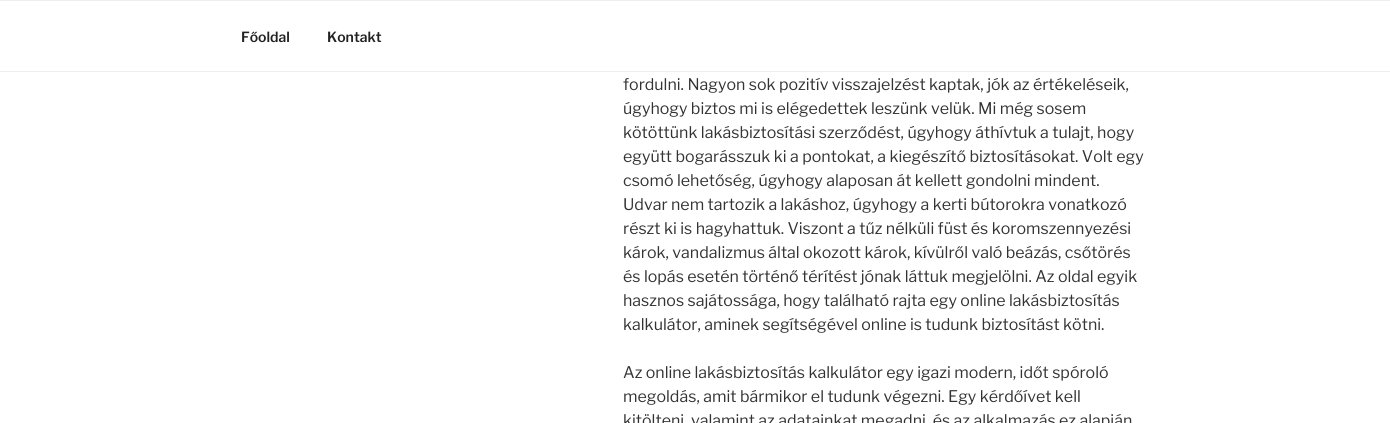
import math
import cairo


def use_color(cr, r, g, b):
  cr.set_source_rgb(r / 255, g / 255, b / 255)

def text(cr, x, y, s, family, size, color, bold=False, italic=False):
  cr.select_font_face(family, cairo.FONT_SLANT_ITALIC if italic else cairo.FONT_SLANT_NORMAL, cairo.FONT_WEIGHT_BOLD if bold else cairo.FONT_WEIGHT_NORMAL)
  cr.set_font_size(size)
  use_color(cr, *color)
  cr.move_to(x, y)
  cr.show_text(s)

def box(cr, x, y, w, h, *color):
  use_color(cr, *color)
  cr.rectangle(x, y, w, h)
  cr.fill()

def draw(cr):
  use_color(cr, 255, 255, 255)
  cr.paint()
  box(cr, 0, 0, 1390, 1, 238, 238, 238)
  box(cr, 0, 71, 1390, 1, 238, 238, 238)
  text(cr, 241, 42, "Főoldal", "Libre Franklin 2 Thin", 14, (34, 34, 34))
  text(cr, 327, 42, "Kontakt", "Libre Franklin 2 Thin", 14, (34, 34, 34))
  text(cr, 623, 90, "fordulni. Nagyon sok pozitív visszajelzést kaptak, jók az értékeléseik,", "Libre Franklin Thin", 16, (51, 51, 51))
  text(cr, 623, 114, "úgyhogy biztos mi is elégedettek leszünk velük. Mi még sosem", "Libre Franklin Thin", 16, (51, 51, 51))
  text(cr, 623, 138, "kötöttünk lakásbiztosítási szerződést, úgyhogy áthívtuk a tulajt, hogy", "Libre Franklin Thin", 16, (51, 51, 51))
  text(cr, 623, 162, "együtt bogarásszuk ki a pontokat, a kiegészítő biztosításokat. Volt egy", "Libre Franklin Thin", 16, (51, 51, 51))
  text(cr, 623, 186, "csomó lehetőség, úgyhogy alaposan át kellett gondolni mindent.", "Libre Franklin Thin", 16, (51, 51, 51))
  text(cr, 623, 210, "Udvar nem tartozik a lakáshoz, úgyhogy a kerti bútorokra vonatkozó", "Libre Franklin Thin", 16, (51, 51, 51))
  text(cr, 623, 234, "részt ki is hagyhattuk. Viszont a tűz nélküli füst és koromszennyezési", "Libre Franklin Thin", 16, (51, 51, 51))
  text(cr, 623, 258, "károk, vandalizmus által okozott károk, kívülről való beázás, csőtörés", "Libre Franklin Thin", 16, (51, 51, 51))
  text(cr, 623, 282, "és lopás esetén történő térítést jónak láttuk megjelölni. Az oldal egyik", "Libre Franklin Thin", 16, (51, 51, 51))
  text(cr, 623, 306, "hasznos sajátossága, hogy található rajta egy online lakásbiztosítás", "Libre Franklin Thin", 16, (51, 51, 51))
  text(cr, 623, 330, "kalkulátor, aminek segítségével online is tudunk biztosítást kötni.", "Libre Franklin Thin", 16, (51, 51, 51))
  text(cr, 623, 378, "Az online lakásbiztosítás kalkulátor egy igazi modern, időt spóroló", "Libre Franklin Thin", 16, (51, 51, 51))
  text(cr, 623, 402, "megoldás, amit bármikor el tudunk végezni. Egy kérdőívet kell", "Libre Franklin Thin", 16, (51, 51, 51))
  text(cr, 623, 426, "kitölteni, valamint az adatainkat megadni, és az alkalmazás ez alapján", "Libre Franklin Thin", 16, (51, 51, 51))


surface = cairo.ImageSurface(cairo.FORMAT_RGB24, 1390, 423)
cr = cairo.Context(surface)
options = cairo.FontOptions()
options.set_hint_metrics(cairo.HINT_METRICS_OFF)
options.set_hint_style(cairo.HINT_STYLE_NONE)
cr.set_font_options(options)
cr.set_miter_limit(4)
draw(cr)
surface.write_to_png("out.png")
